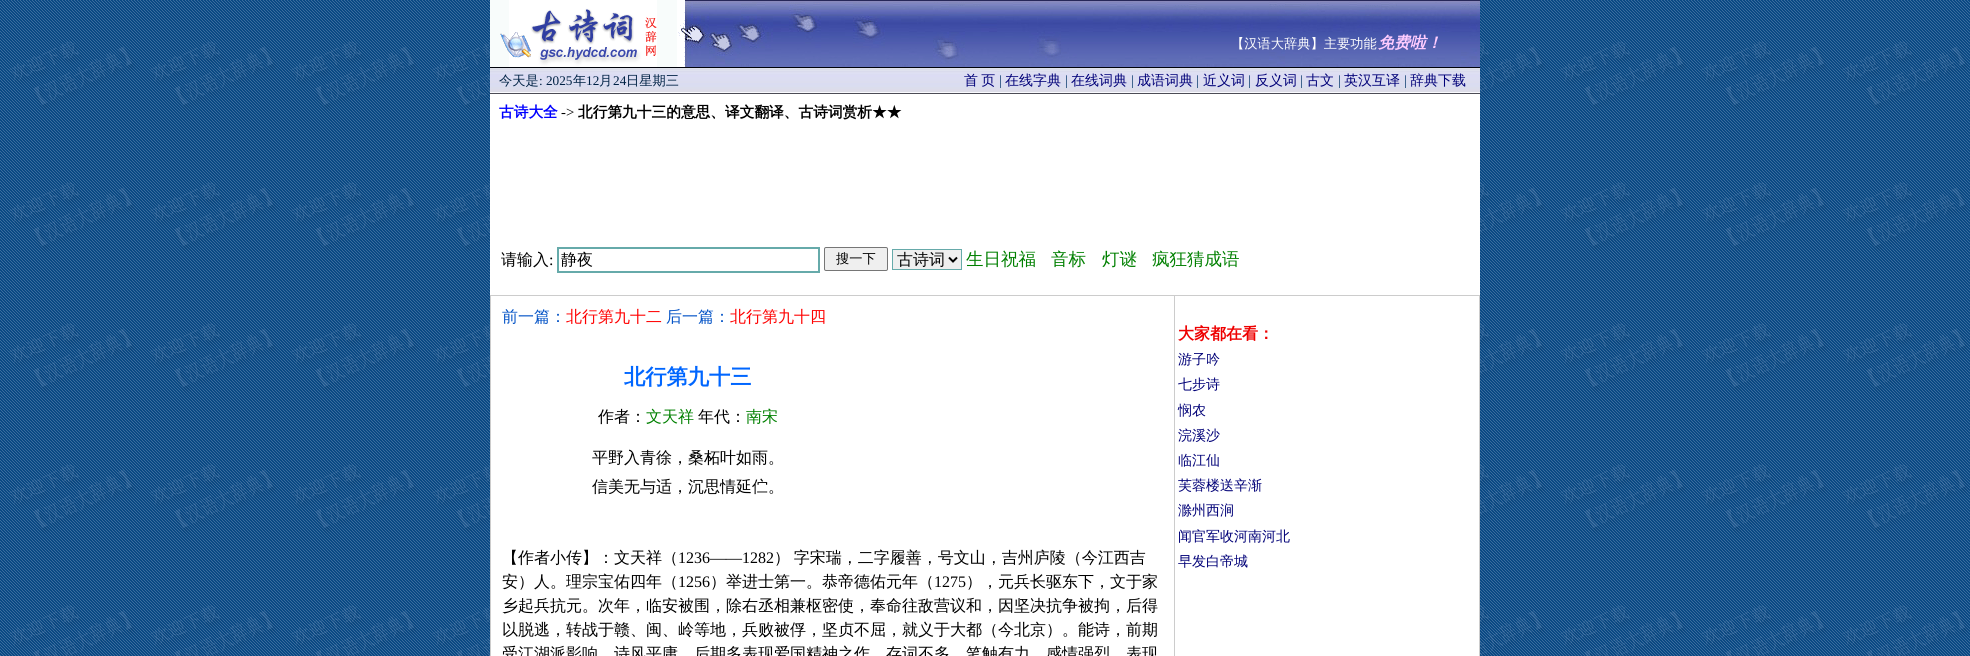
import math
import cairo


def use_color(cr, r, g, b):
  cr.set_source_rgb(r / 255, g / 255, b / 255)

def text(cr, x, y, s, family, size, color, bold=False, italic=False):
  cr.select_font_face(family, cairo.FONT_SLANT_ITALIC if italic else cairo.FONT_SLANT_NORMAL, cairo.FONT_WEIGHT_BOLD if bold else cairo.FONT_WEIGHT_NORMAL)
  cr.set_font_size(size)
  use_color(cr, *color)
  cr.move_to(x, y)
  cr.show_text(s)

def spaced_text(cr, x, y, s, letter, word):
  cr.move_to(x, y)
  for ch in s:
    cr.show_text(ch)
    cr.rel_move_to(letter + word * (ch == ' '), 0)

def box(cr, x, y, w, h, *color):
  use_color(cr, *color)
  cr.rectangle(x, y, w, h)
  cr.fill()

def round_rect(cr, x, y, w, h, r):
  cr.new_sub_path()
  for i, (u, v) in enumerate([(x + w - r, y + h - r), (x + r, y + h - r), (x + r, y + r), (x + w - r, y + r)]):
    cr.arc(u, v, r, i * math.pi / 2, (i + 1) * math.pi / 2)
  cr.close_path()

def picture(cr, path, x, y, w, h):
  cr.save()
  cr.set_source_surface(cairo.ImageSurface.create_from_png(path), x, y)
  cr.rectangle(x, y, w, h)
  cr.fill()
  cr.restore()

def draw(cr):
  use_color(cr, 255, 255, 255)
  cr.paint()
  picture(cr, "img_01.png", 0, 0, 1970, 656)
  box(cr, 490, 0, 990, 656, 255, 255, 255)
  picture(cr, "img_02.png", 490, 0, 187, 67)
  picture(cr, "img_03.png", 678, 0, 802, 67)
  picture(cr, "img_04.png", 490, 67, 295, 27)
  picture(cr, "img_05.png", 785, 67, 695, 27)
  cr.rectangle(558, 248, 261, 24)
  use_color(cr, 102, 170, 170)
  cr.stroke()
  use_color(cr, 239, 239, 239)
  round_rect(cr, 824.5, 247.5, 63, 23, 1.5)
  cr.fill_preserve()
  use_color(cr, 118, 118, 118)
  cr.set_line_width(1)
  cr.stroke()
  use_color(cr, 239, 239, 239)
  cr.rectangle(892.5, 249.5, 69, 20)
  cr.fill_preserve()
  use_color(cr, 102, 170, 170)
  cr.stroke()
  cr.new_path()
  cr.move_to(949, 257.5)
  cr.line_to(953, 261.5)
  cr.line_to(957, 257.5)
  use_color(cr, 0, 0, 0)
  cr.set_line_width(2)
  cr.stroke()
  box(cr, 490, 295, 990, 1, 204, 204, 204)
  box(cr, 1479, 295, 1, 361, 204, 204, 204)
  box(cr, 490, 295, 1, 361, 204, 204, 204)
  box(cr, 1174, 295, 1, 361, 204, 204, 204)
  text(cr, 1231, 48, "【汉语大辞典】主要功能", "WenQuanYi Zen Hei Medium", 13.25, (255, 255, 255))
  text(cr, 1378, 48, "免费啦！", "WenQuanYi Zen Hei", 16, (255, 204, 255), bold=True, italic=True)
  text(cr, 499, 85, "今天是", "WenQuanYi Zen Hei Medium", 13.25, (0, 34, 68))
  text(cr, 539, 85, ": 2025", "Liberation Serif", 13.25, (0, 34, 68))
  text(cr, 573, 85, "年", "WenQuanYi Zen Hei Medium", 13.25, (0, 34, 68))
  text(cr, 586, 85, "12", "Liberation Serif", 13.25, (0, 34, 68))
  text(cr, 599, 85, "月", "WenQuanYi Zen Hei Medium", 13.25, (0, 34, 68))
  text(cr, 613, 85, "24", "Liberation Serif", 13.25, (0, 34, 68))
  text(cr, 626, 85, "日星期三", "WenQuanYi Zen Hei Medium", 13.25, (0, 34, 68))
  cr.set_font_size(14)
  use_color(cr, 0, 0, 119)
  spaced_text(cr, 964, 85, "首 页", 0, -1)
  text(cr, 999, 85, "|", "Liberation Serif", 14, (0, 51, 102))
  text(cr, 1005, 85, "在线字典", "WenQuanYi Zen Hei Medium", 14, (0, 0, 119))
  text(cr, 1065, 85, "|", "Liberation Serif", 14, (0, 51, 102))
  text(cr, 1071, 85, "在线词典", "WenQuanYi Zen Hei Medium", 14, (0, 0, 119))
  text(cr, 1131, 85, "|", "Liberation Serif", 14, (0, 51, 102))
  text(cr, 1137, 85, "成语词典", "WenQuanYi Zen Hei Medium", 14, (0, 0, 119))
  text(cr, 1196, 85, "|", "Liberation Serif", 14, (0, 51, 102))
  text(cr, 1203, 85, "近义词", "WenQuanYi Zen Hei Medium", 14, (0, 0, 119))
  text(cr, 1248, 85, "|", "Liberation Serif", 14, (0, 51, 102))
  text(cr, 1255, 85, "反义词", "WenQuanYi Zen Hei Medium", 14, (0, 0, 119))
  text(cr, 1300, 85, "|", "Liberation Serif", 14, (0, 51, 102))
  text(cr, 1306, 85, "古文", "WenQuanYi Zen Hei Medium", 14, (0, 0, 119))
  text(cr, 1338, 85, "|", "Liberation Serif", 14, (0, 51, 102))
  text(cr, 1344, 85, "英汉互译", "WenQuanYi Zen Hei Medium", 14, (0, 0, 119))
  text(cr, 1404, 85, "|", "Liberation Serif", 14, (0, 51, 102))
  text(cr, 1410, 85, "辞典下载", "WenQuanYi Zen Hei Medium", 14, (0, 0, 119))
  text(cr, 499, 117, "古诗大全", "WenQuanYi Zen Hei", 14.7, (0, 0, 255), bold=True)
  text(cr, 561, 117, "->", "Liberation Serif", 14.7, (0, 0, 0))
  text(cr, 578, 117, "北行第九十三的意思、译文翻译、古诗词赏析★★", "WenQuanYi Zen Hei", 14.7, (0, 0, 0), bold=True)
  text(cr, 501, 265, "请输入", "WenQuanYi Zen Hei Medium", 16, (0, 0, 0))
  text(cr, 549, 265, ":", "Liberation Serif", 16, (0, 0, 0))
  text(cr, 561, 265, "静夜", "WenQuanYi Zen Hei Medium", 16, (0, 0, 0))
  text(cr, 836, 263, "搜一下", "WenQuanYi Zen Hei Medium", 13.25, (0, 0, 0))
  text(cr, 897, 265, "古诗词", "WenQuanYi Zen Hei Medium", 16, (0, 0, 0))
  text(cr, 966, 265, "生日祝福", "WenQuanYi Zen Hei Medium", 17.5, (0, 128, 0))
  text(cr, 1051, 265, "音标", "WenQuanYi Zen Hei Medium", 17.5, (0, 128, 0))
  text(cr, 1102, 265, "灯谜", "WenQuanYi Zen Hei Medium", 17.5, (0, 128, 0))
  text(cr, 1152, 265, "疯狂猜成语", "WenQuanYi Zen Hei Medium", 17.5, (0, 128, 0))
  text(cr, 502, 322, "前一篇：", "WenQuanYi Zen Hei Medium", 16, (2, 82, 198))
  text(cr, 566, 322, "北行第九十二", "WenQuanYi Zen Hei Medium", 16, (255, 0, 0))
  text(cr, 666, 322, "后一篇：", "WenQuanYi Zen Hei Medium", 16, (2, 82, 198))
  text(cr, 730, 322, "北行第九十四", "WenQuanYi Zen Hei Medium", 16, (255, 0, 0))
  text(cr, 624, 384, "北行第九十三", "WenQuanYi Zen Hei", 21.25, (0, 102, 255), bold=True)
  text(cr, 598, 422, "作者：", "WenQuanYi Zen Hei Medium", 16, (0, 0, 0))
  text(cr, 646, 422, "文天祥", "WenQuanYi Zen Hei Medium", 16, (0, 128, 0))
  text(cr, 698, 422, "年代：", "WenQuanYi Zen Hei Medium", 16, (0, 0, 0))
  text(cr, 746, 422, "南宋", "WenQuanYi Zen Hei Medium", 16, (0, 128, 0))
  text(cr, 592, 463, "平野入青徐，桑柘叶如雨。", "WenQuanYi Zen Hei Medium", 16, (0, 0, 0))
  text(cr, 592, 492, "信美无与适，沉思情延伫。", "WenQuanYi Zen Hei Medium", 16, (0, 0, 0))
  text(cr, 502, 563, "【作者小传】：文天祥（", "WenQuanYi Zen Hei Medium", 16, (0, 0, 0))
  text(cr, 678, 563, "1236——1282", "Liberation Serif", 16, (0, 0, 0))
  cr.select_font_face("WenQuanYi Zen Hei Medium")
  spaced_text(cr, 774, 563, "） 字宋瑞，二字履善，号文山，吉州庐陵（今江西吉", 0, -1)
  text(cr, 502, 587, "安）人。理宗宝佑四年（", "WenQuanYi Zen Hei Medium", 16, (0, 0, 0))
  text(cr, 678, 587, "1256", "Liberation Serif", 16, (0, 0, 0))
  text(cr, 710, 587, "）举进士第一。恭帝德佑元年（", "WenQuanYi Zen Hei Medium", 16, (0, 0, 0))
  text(cr, 934, 587, "1275", "Liberation Serif", 16, (0, 0, 0))
  text(cr, 966, 587, "），元兵长驱东下，文于家", "WenQuanYi Zen Hei Medium", 16, (0, 0, 0))
  text(cr, 502, 611, "乡起兵抗元。次年，临安被围，除右丞相兼枢密使，奉命往敌营议和，因坚决抗争被拘，后得", "WenQuanYi Zen Hei Medium", 16, (0, 0, 0))
  text(cr, 502, 635, "以脱逃，转战于赣、闽、岭等地，兵败被俘，坚贞不屈，就义于大都（今北京）。能诗，前期", "WenQuanYi Zen Hei Medium", 16, (0, 0, 0))
  text(cr, 502, 659, "受江湖派影响，诗风平庸，后期多表现爱国精神之作。存词不多，笔触有力，感情强烈，表现", "WenQuanYi Zen Hei Medium", 16, (0, 0, 0))
  text(cr, 1178, 339, "大家都在看：", "WenQuanYi Zen Hei", 16, (238, 0, 0), bold=True)
  text(cr, 1178, 364, "游子吟", "WenQuanYi Zen Hei Medium", 14, (0, 0, 119))
  text(cr, 1178, 389, "七步诗", "WenQuanYi Zen Hei Medium", 14, (0, 0, 119))
  text(cr, 1178, 415, "悯农", "WenQuanYi Zen Hei Medium", 14, (0, 0, 119))
  text(cr, 1178, 440, "浣溪沙", "WenQuanYi Zen Hei Medium", 14, (0, 0, 119))
  text(cr, 1178, 465, "临江仙", "WenQuanYi Zen Hei Medium", 14, (0, 0, 119))
  text(cr, 1178, 490, "芙蓉楼送辛渐", "WenQuanYi Zen Hei Medium", 14, (0, 0, 119))
  text(cr, 1178, 515, "滁州西涧", "WenQuanYi Zen Hei Medium", 14, (0, 0, 119))
  text(cr, 1178, 541, "闻官军收河南河北", "WenQuanYi Zen Hei Medium", 14, (0, 0, 119))
  text(cr, 1178, 566, "早发白帝城", "WenQuanYi Zen Hei Medium", 14, (0, 0, 119))


surface = cairo.ImageSurface(cairo.FORMAT_RGB24, 1970, 656)
cr = cairo.Context(surface)
options = cairo.FontOptions()
options.set_hint_metrics(cairo.HINT_METRICS_OFF)
options.set_hint_style(cairo.HINT_STYLE_NONE)
cr.set_font_options(options)
cr.set_miter_limit(4)
draw(cr)
surface.write_to_png("out.png")
